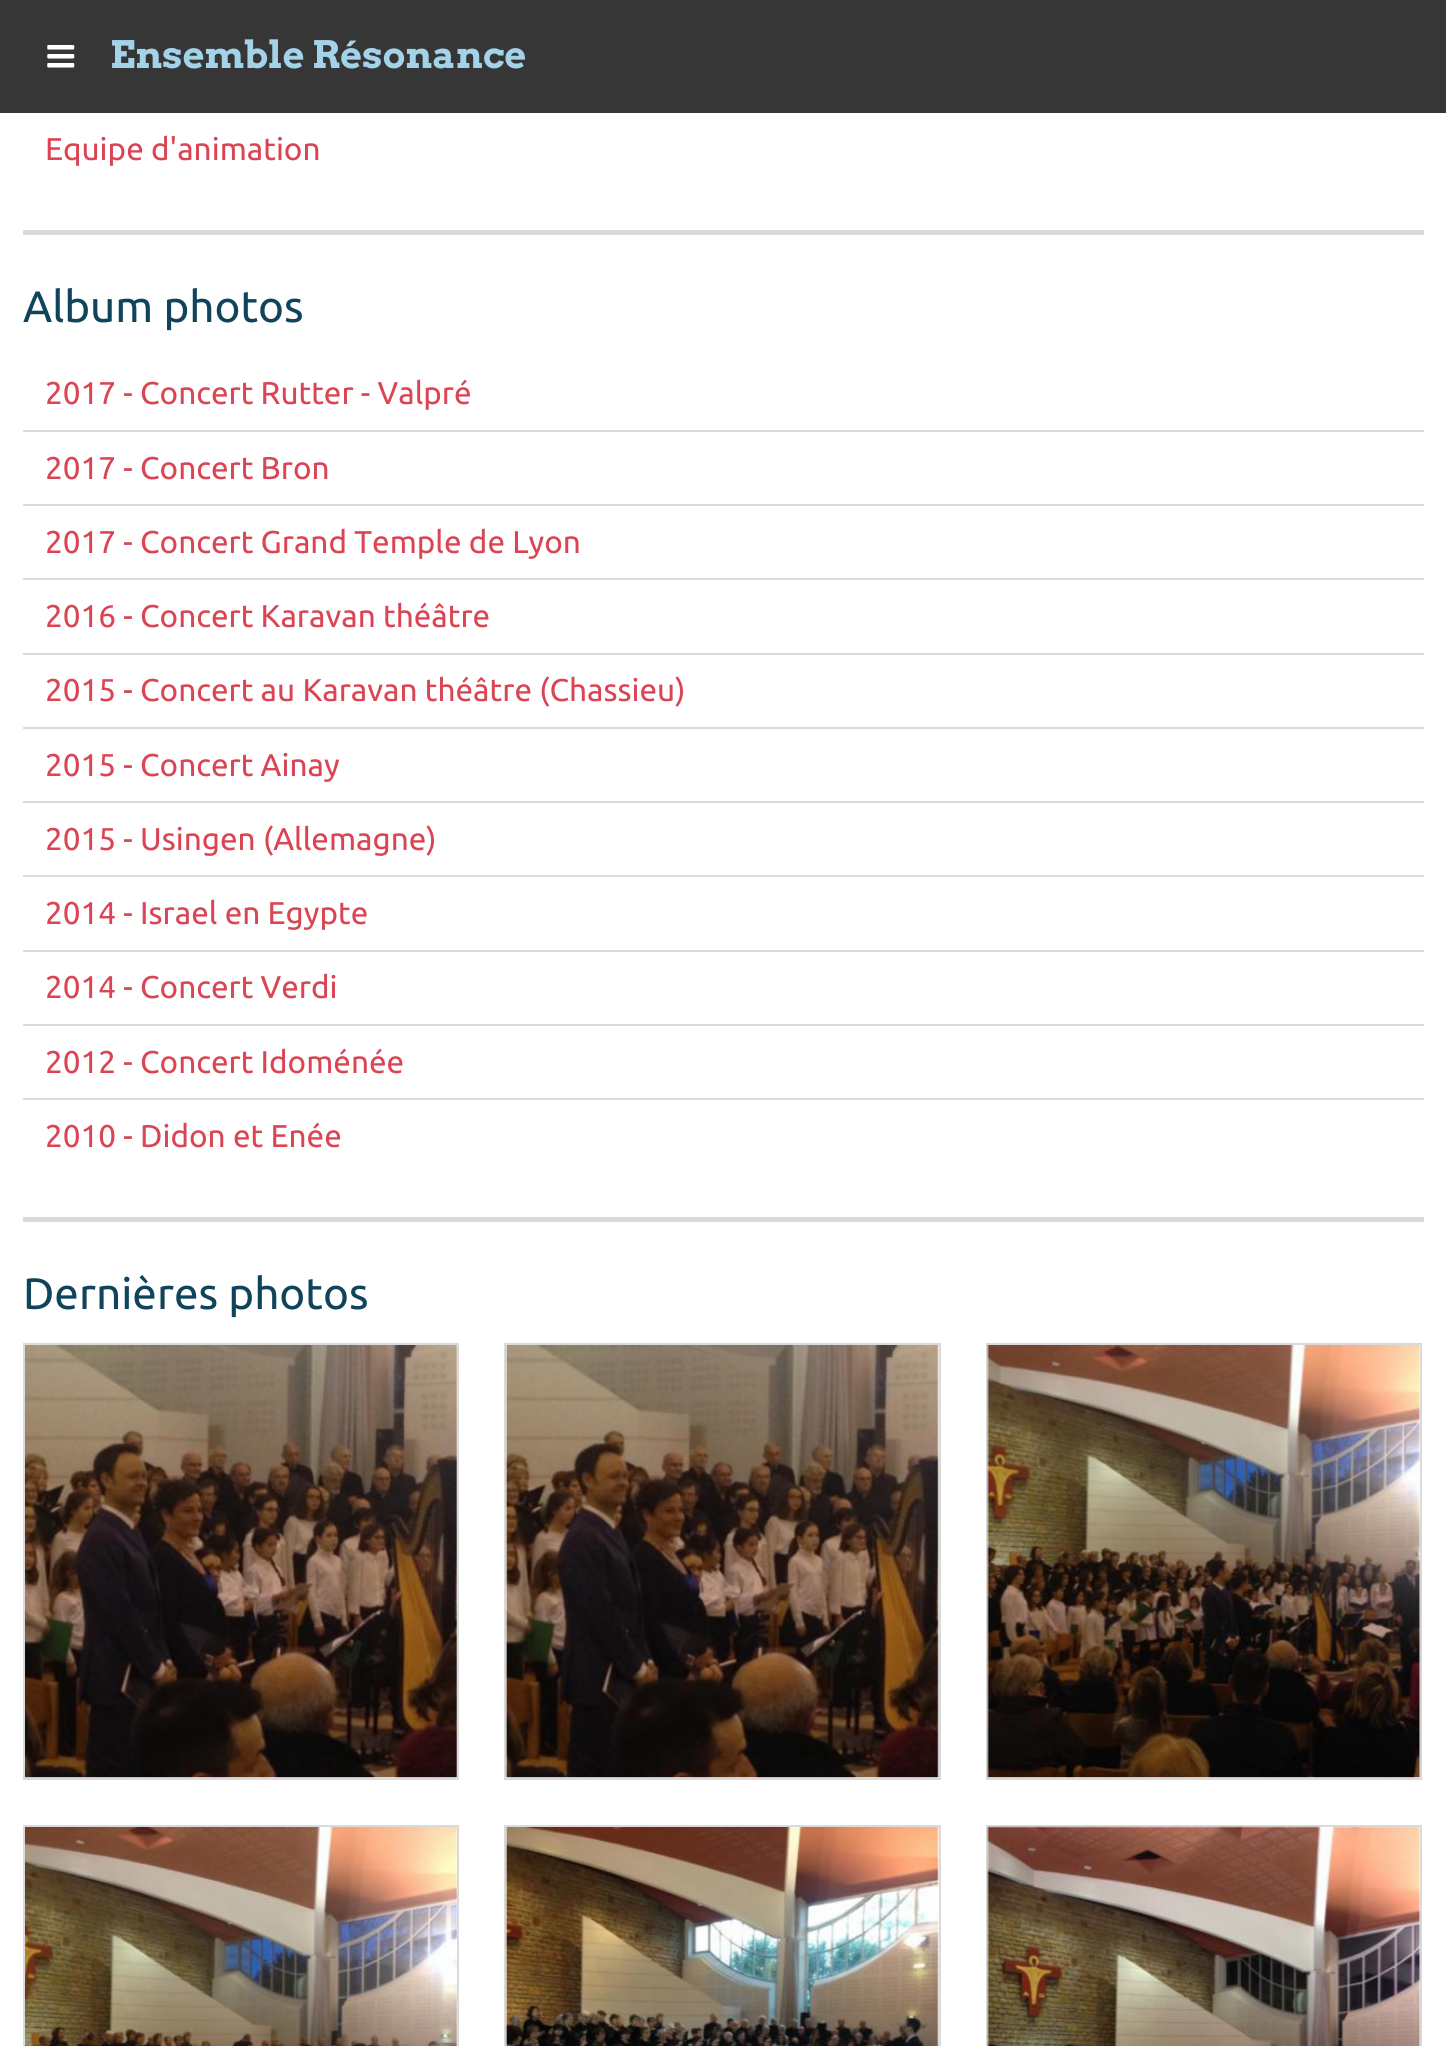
import math
import cairo


def use_color(cr, r, g, b):
  cr.set_source_rgb(r / 255, g / 255, b / 255)

def text(cr, x, y, s, family, size, color, bold=False, italic=False):
  cr.select_font_face(family, cairo.FONT_SLANT_ITALIC if italic else cairo.FONT_SLANT_NORMAL, cairo.FONT_WEIGHT_BOLD if bold else cairo.FONT_WEIGHT_NORMAL)
  cr.set_font_size(size)
  use_color(cr, *color)
  cr.move_to(x, y)
  cr.show_text(s)

def box(cr, x, y, w, h, *color):
  use_color(cr, *color)
  cr.rectangle(x, y, w, h)
  cr.fill()

def picture(cr, path, x, y, w, h):
  cr.save()
  cr.set_source_surface(cairo.ImageSurface.create_from_png(path), x, y)
  cr.rectangle(x, y, w, h)
  cr.fill()
  cr.restore()

def draw(cr):
  use_color(cr, 255, 255, 255)
  cr.paint()
  box(cr, 0, 0, 1446, 113, 54, 54, 54)
  picture(cr, "img_01.png", 47, 45, 28, 23)
  box(cr, 23, 230, 1401, 5, 218, 218, 218)
  box(cr, 23, 1217, 1401, 5, 218, 218, 218)
  box(cr, 23, 430, 1401, 2, 218, 218, 218)
  box(cr, 23, 504, 1401, 2, 218, 218, 218)
  box(cr, 23, 578, 1401, 2, 218, 218, 218)
  box(cr, 23, 653, 1401, 2, 218, 218, 218)
  box(cr, 23, 727, 1401, 2, 218, 218, 218)
  box(cr, 23, 801, 1401, 2, 218, 218, 218)
  box(cr, 23, 875, 1401, 2, 218, 218, 218)
  box(cr, 23, 950, 1401, 2, 218, 218, 218)
  box(cr, 23, 1024, 1401, 2, 218, 218, 218)
  box(cr, 23, 1098, 1401, 2, 218, 218, 218)
  cr.rectangle(24, 1344, 434, 435)
  cr.stroke()
  picture(cr, "img_02.png", 25, 1345, 432, 433)
  cr.rectangle(505, 1344, 435, 435)
  cr.stroke()
  picture(cr, "img_03.png", 505, 1345, 434, 433)
  cr.rectangle(987, 1344, 434, 435)
  cr.stroke()
  picture(cr, "img_04.png", 987, 1345, 434, 433)
  cr.rectangle(24, 1826, 434, 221)
  cr.stroke()
  picture(cr, "img_05.png", 25, 1827, 432, 219)
  cr.rectangle(505, 1826, 435, 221)
  cr.stroke()
  picture(cr, "img_06.png", 505, 1827, 434, 219)
  cr.rectangle(987, 1826, 434, 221)
  cr.stroke()
  picture(cr, "img_07.png", 987, 1826, 434, 220)
  text(cr, 110, 68, "Ensemble Résonance", "Arvo", 37.75, (163, 211, 233), bold=True)
  text(cr, 45, 160, "Equipe d'animation", "Ubuntu", 31.5, (218, 68, 83))
  text(cr, 23, 322, "Album photos", "Ubuntu", 44, (16, 68, 92))
  text(cr, 45, 404, "2017 - Concert Rutter - Valpré", "Ubuntu", 31.5, (218, 68, 83))
  text(cr, 45, 479, "2017 - Concert Bron", "Ubuntu", 31.5, (218, 68, 83))
  text(cr, 45, 553, "2017 - Concert Grand Temple de Lyon", "Ubuntu", 31.5, (218, 68, 83))
  text(cr, 45, 627, "2016 - Concert Karavan théâtre", "Ubuntu", 31.5, (218, 68, 83))
  text(cr, 45, 701, "2015 - Concert au Karavan théâtre (Chassieu)", "Ubuntu", 31.5, (218, 68, 83))
  text(cr, 45, 776, "2015 - Concert Ainay", "Ubuntu", 31.5, (218, 68, 83))
  text(cr, 45, 850, "2015 - Usingen (Allemagne)", "Ubuntu", 31.5, (218, 68, 83))
  text(cr, 45, 924, "2014 - Israel en Egypte", "Ubuntu", 31.5, (218, 68, 83))
  text(cr, 45, 998, "2014 - Concert Verdi", "Ubuntu", 31.5, (218, 68, 83))
  text(cr, 45, 1073, "2012 - Concert Idoménée", "Ubuntu", 31.5, (218, 68, 83))
  text(cr, 45, 1147, "2010 - Didon et Enée", "Ubuntu", 31.5, (218, 68, 83))
  text(cr, 23, 1309, "Dernières photos", "Ubuntu", 44, (16, 68, 92))


surface = cairo.ImageSurface(cairo.FORMAT_RGB24, 1446, 2046)
cr = cairo.Context(surface)
options = cairo.FontOptions()
options.set_hint_metrics(cairo.HINT_METRICS_OFF)
options.set_hint_style(cairo.HINT_STYLE_NONE)
cr.set_font_options(options)
cr.set_miter_limit(4)
draw(cr)
surface.write_to_png("out.png")
